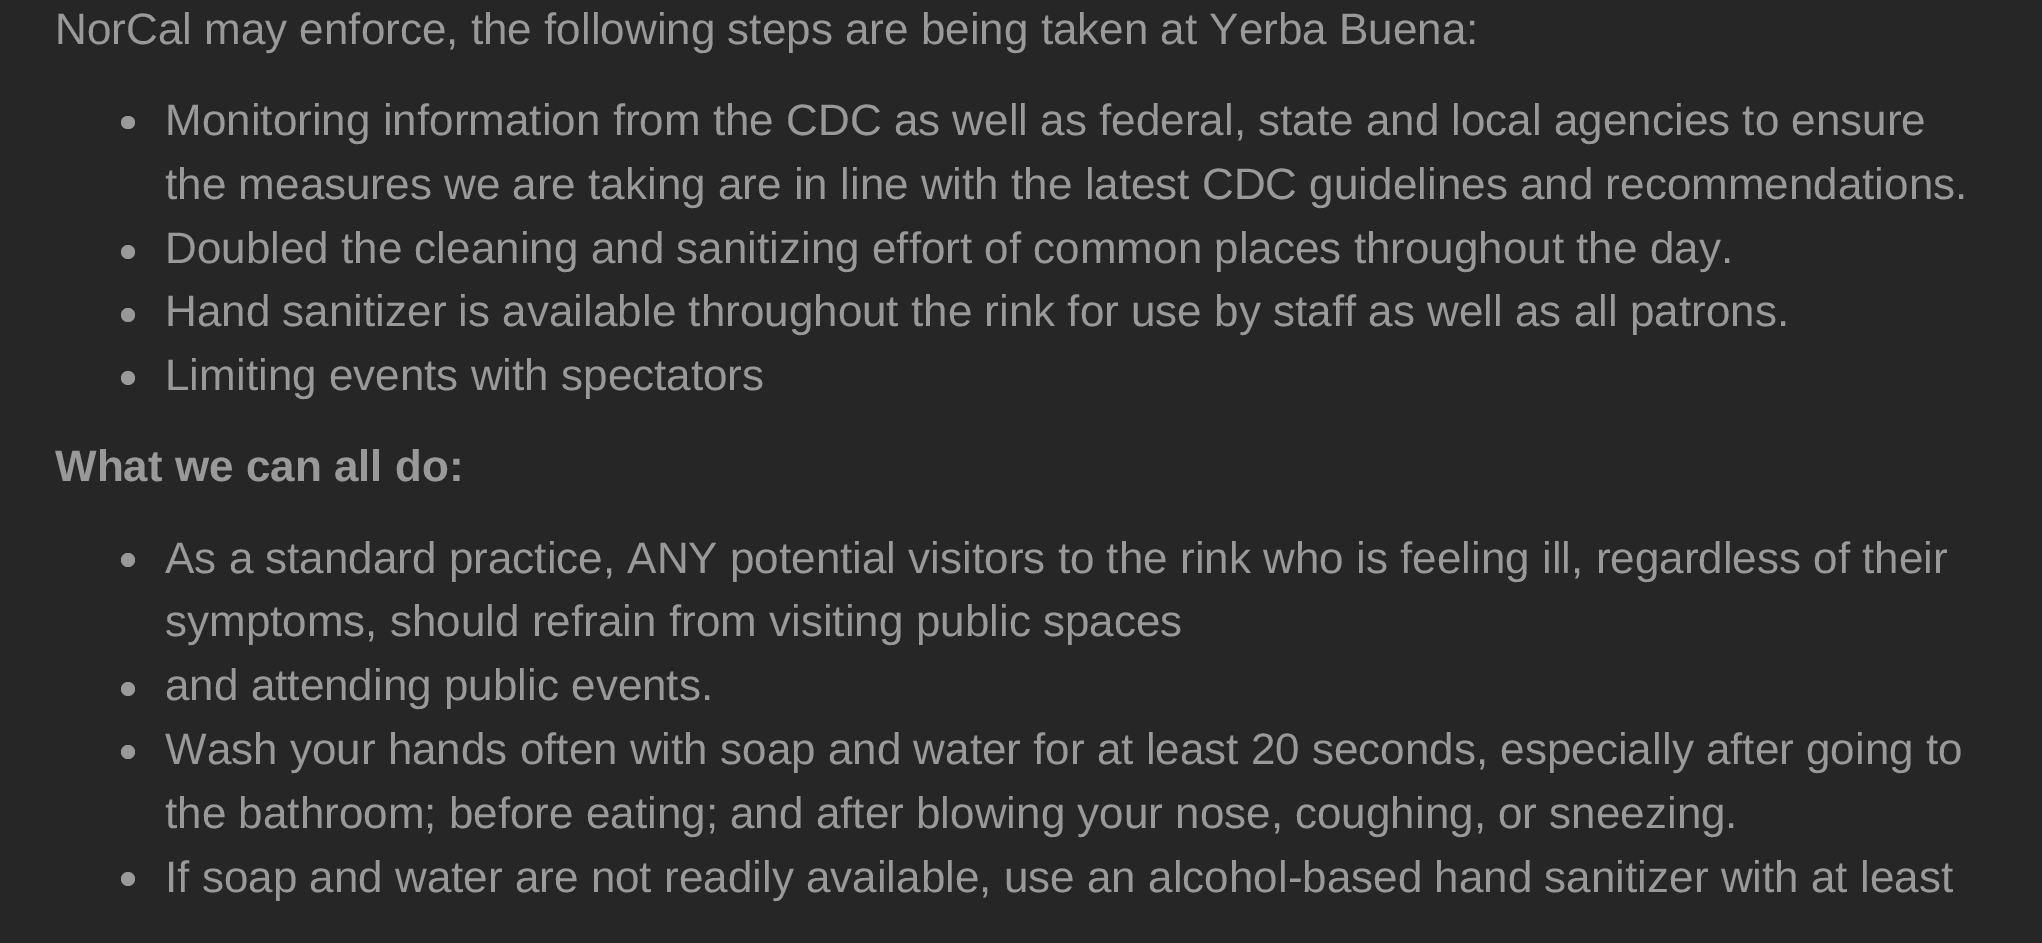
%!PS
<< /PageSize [2042 943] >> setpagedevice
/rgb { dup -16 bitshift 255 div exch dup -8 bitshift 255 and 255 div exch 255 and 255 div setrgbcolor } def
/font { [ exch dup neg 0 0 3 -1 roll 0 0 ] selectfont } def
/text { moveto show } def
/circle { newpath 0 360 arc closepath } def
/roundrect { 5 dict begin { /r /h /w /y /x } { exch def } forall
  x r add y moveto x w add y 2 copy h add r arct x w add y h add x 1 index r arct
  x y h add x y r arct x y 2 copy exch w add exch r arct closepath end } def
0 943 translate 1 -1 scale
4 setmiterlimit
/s1 { /LiberationSans-Regular 44 font 16#999999 rgb } def
/s2 { /LiberationSans-Bold 44 font 16#999999 rgb } def
16#262626 rgb
0 0 2042 943 rectfill
s1
(NorCal may enforce, the following steps are being taken at Yerba Buena:) 55 44 text
121 116 14 13 6.5 roundrect fill
(Monitoring information from the CDC as well as federal, state and local agencies to ensure) 165 135 text
(the measures we are taking are in line with the latest CDC guidelines and recommendations.) 165 199 text
128 252 7 circle fill
(Doubled the cleaning and sanitizing effort of common places throughout the day.) 165 263 text
128 315 7 circle fill
(Hand sanitizer is available throughout the rink for use by staff as well as all patrons.) 165 326 text
128 378 7 circle fill
(Limiting events with spectators) 165 390 text
s2
(What we can all do:) 55 481 text
128 560 7 circle fill
s1
(As a standard practice, ANY potential visitors to the rink who is feeling ill, regardless of their) 165 573 text
(symptoms, should refrain from visiting public spaces) 165 636 text
128 689 7 circle fill
(and attending public events.) 165 700 text
128 752 7 circle fill
(Wash your hands often with soap and water for at least 20 seconds, especially after going to) 165 764 text
(the bathroom; before eating; and after blowing your nose, coughing, or sneezing.) 165 828 text
128 879 7 circle fill
(If soap and water are not readily available, use an alcohol-based hand sanitizer with at least) 165 892 text
showpage
